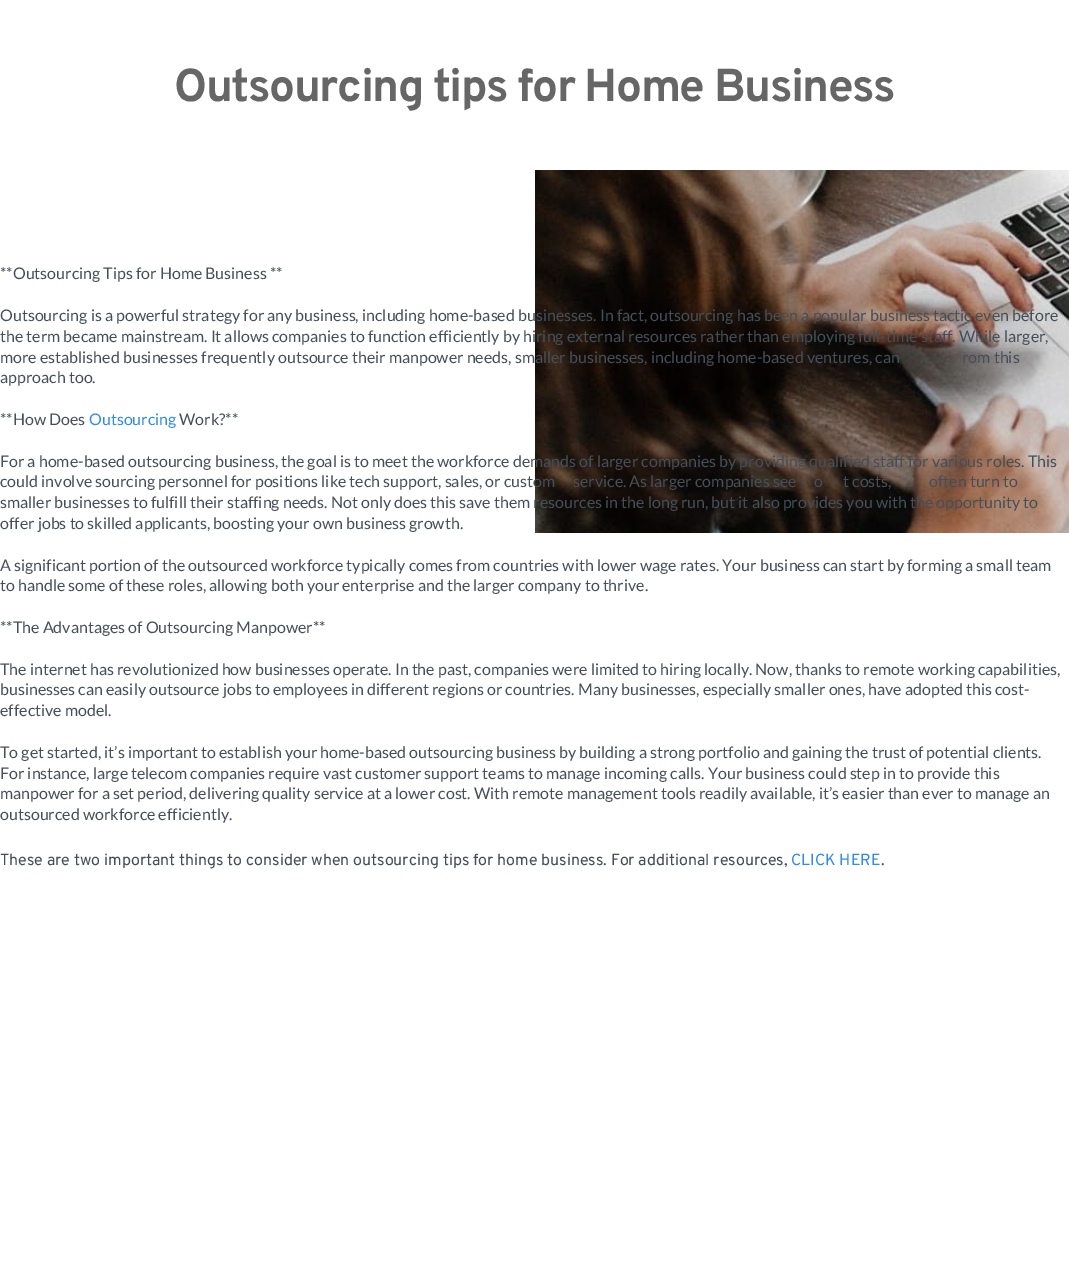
%!PS
<< /PageSize [1069 1263] >> setpagedevice
/rgb { dup -16 bitshift 255 div exch dup -8 bitshift 255 and 255 div exch 255 and 255 div setrgbcolor } def
/font { [ exch dup neg 0 0 3 -1 roll 0 0 ] selectfont } def
/text { moveto show } def
/picture { 5 dict begin { /h /w /y /x /name } { exch def } forall
  gsave x y translate w h scale
  w h 8 [w 0 0 h 0 0] name (r) file false 3 colorimage grestore end } def
0 1263 translate 1 -1 scale
4 setmiterlimit
/s1 { /Lato-Regular 16 font 16#454F59 rgb } def
/s2 { /Lato-Regular 16 font 16#2F8BE6 rgb } def
/s3 { /Overpass-Regular 16 font 16#454F59 rgb } def
/s4 { /Overpass-Regular 16 font 16#2F8BE6 rgb } def
16#FFFFFF rgb
0 0 1069 1263 rectfill
/Overpass-Bold 46 font
16#666666 rgb
174 101 moveto -1.5 0 (Outsourcing tips for Home Business) ashow
(pic1.raw) 535 170 534 363 picture
s1
(**Outsourcing Tips for Home Business **) 0 279 text
(Outsourcing is a powerful strategy for any business, including home-based businesses. In fact, outsourcing has been a popular business tactic even before) 0 321 text
(the term became mainstream. It allows companies to function efficiently by hiring external resources rather than employing full-time staff. While larger,) 0 342 text
(more established businesses frequently outsource their manpower needs, smaller businesses, including home-based ventures, can) 0 363 text
(rom this) 962 363 text
(approach too.) 0 383 text
(**How Does) 0 425 text
s2
(Outsourcing) 89 425 text
s1
(Work?**) 179 425 text
(For a home-based outsourcing business, the goal is to meet the workforce demands of larger companies by providing qualified staff for various roles. This) 0 467 text
(could involve sourcing personnel for positions like tech support, sales, or custom) 0 487 text
(service. As larger companies see) 573 487 text
(o) 814 487 text
(t costs,) 843 487 text
(often turn to) 929 487 text
(smaller businesses to fulfill their staffing needs. Not only does this save them resources in the long run, but it also provides you with the opportunity to) 0 508 text
(offer jobs to skilled applicants, boosting your own business growth.) 0 529 text
(A significant portion of the outsourced workforce typically comes from countries with lower wage rates. Your business can start by forming a small team) 0 571 text
(to handle some of these roles, allowing both your enterprise and the larger company to thrive.) 0 591 text
(**The Advantages of Outsourcing Manpower**) 0 633 text
(The internet has revolutionized how businesses operate. In the past, companies were limited to hiring locally. Now, thanks to remote working capabilities,) 0 675 text
(businesses can easily outsource jobs to employees in different regions or countries. Many businesses, especially smaller ones, have adopted this cost-) 0 695 text
(effective model.) 0 716 text
(To get started, it’s important to establish your home-based outsourcing business by building a strong portfolio and gaining the trust of potential clients.) 0 758 text
(For instance, large telecom companies require vast customer support teams to manage incoming calls. Your business could step in to provide this) 0 779 text
(manpower for a set period, delivering quality service at a lower cost. With remote management tools readily available, it’s easier than ever to manage an) 0 799 text
(outsourced workforce efficiently.) 0 820 text
s3
(These are two important things to consider when outsourcing tips for home business. For additional resources,) 0 865 text
s4
(CLICK HERE) 791 865 text
s3
(.) 881 865 text
showpage
